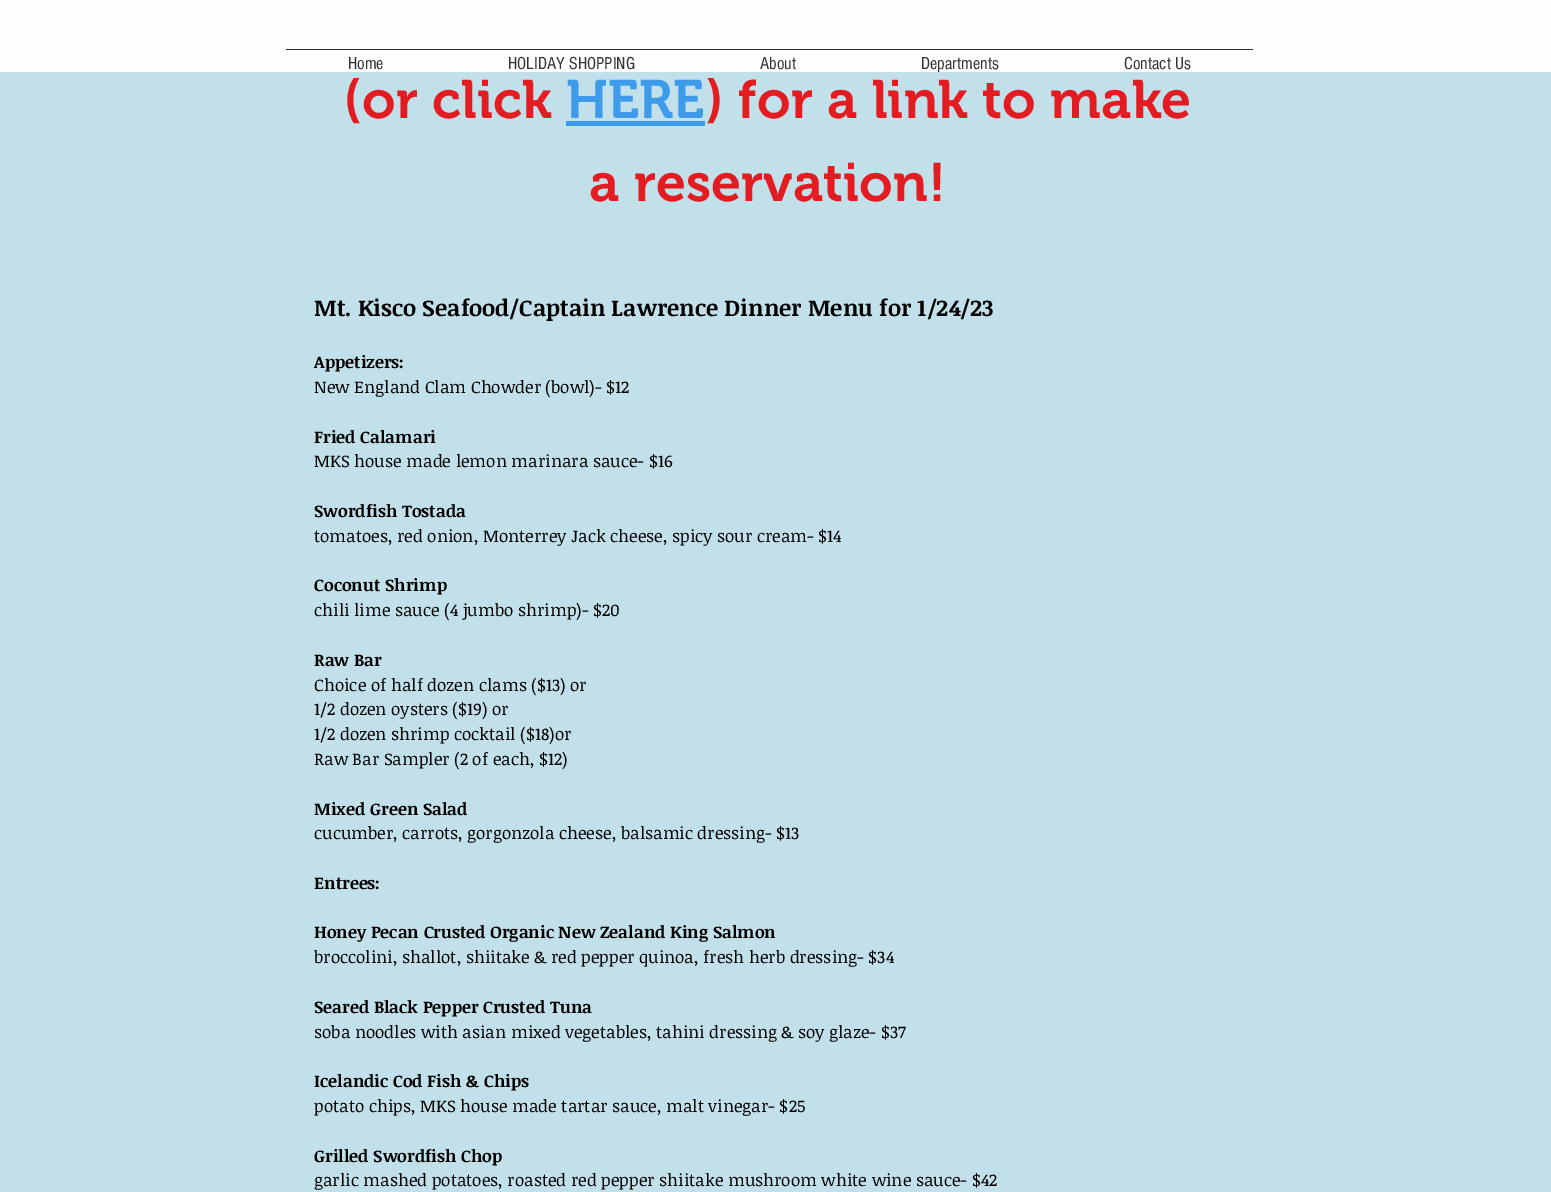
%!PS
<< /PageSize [1551 1192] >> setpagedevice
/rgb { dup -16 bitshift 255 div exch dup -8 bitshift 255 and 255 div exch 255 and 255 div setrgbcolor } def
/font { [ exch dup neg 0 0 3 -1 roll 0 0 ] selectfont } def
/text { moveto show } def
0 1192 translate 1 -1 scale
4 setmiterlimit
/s1 { /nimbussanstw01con-Regular 18 font 16#333333 rgb } def
/s2 { /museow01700-SemiBold 54 font 16#E21C21 rgb } def
/s3 { /museow01700-SemiBold 54 font 16#3D9BE9 rgb } def
/s4 { /NoticiaText-Bold 23 font 16#000000 rgb } def
/s5 { /NoticiaText-Bold 17 font 16#000000 rgb } def
/s6 { /NoticiaText-Regular 17 font 16#000000 rgb } def
16#C2E0E9 rgb
0 0 1551 1192 rectfill
16#FDFEFE rgb
0 0 1551 72 rectfill
16#333333 rgb
286 49 967 1 rectfill
s1
(Home) 348 69 text
(HOLIDAY SHOPPING) 508 69 text
(About) 760 69 text
(Departments) 921 69 text
(Contact Us) 1124 69 text
s2
(\(or click) 343 118 text
s3
(HERE) 566 118 text
566 121 139 5 rectfill
s2
(\) for a link to make) 705 118 text
(a reservation!) 589 201 text
s4
(Mt. Kisco Seafood/Captain Lawrence Dinner Menu for 1/24/23) 314 316 text
s5
(Appetizers:) 314 368 text
s6
(New England Clam Chowder \(bowl\)- $12) 314 393 text
s5
(Fried Calamari) 314 443 text
s6
(MKS house made lemon marinara sauce- $16) 314 467 text
s5
(Swordfish Tostada) 314 517 text
s6
(tomatoes, red onion, Monterrey Jack cheese, spicy sour cream- $14) 314 542 text
s5
(Coconut Shrimp) 314 591 text
s6
(chili lime sauce \(4 jumbo shrimp\)- $20) 314 616 text
s5
(Raw Bar) 314 666 text
s6
(Choice of half dozen clams \($13\) or) 314 691 text
(1/2 dozen oysters \($19\) or) 314 715 text
(1/2 dozen shrimp cocktail \($18\)or) 314 740 text
(Raw Bar Sampler \(2 of each, $12\)) 314 765 text
s5
(Mixed Green Salad) 314 815 text
s6
(cucumber, carrots, gorgonzola cheese, balsamic dressing- $13) 314 839 text
s5
(Entrees:) 314 889 text
(Honey Pecan Crusted Organic New Zealand King Salmon) 314 938 text
s6
(broccolini, shallot, shiitake & red pepper quinoa, fresh herb dressing- $34) 314 963 text
s5
(Seared Black Pepper Crusted Tuna) 314 1013 text
s6
(soba noodles with asian mixed vegetables, tahini dressing & soy glaze- $37) 314 1038 text
s5
(Icelandic Cod Fish & Chips) 314 1087 text
s6
(potato chips, MKS house made tartar sauce, malt vinegar- $25) 314 1112 text
s5
(Grilled Swordfish Chop) 314 1162 text
s6
(garlic mashed potatoes, roasted red pepper shiitake mushroom white wine sauce- $42) 314 1186 text
showpage
